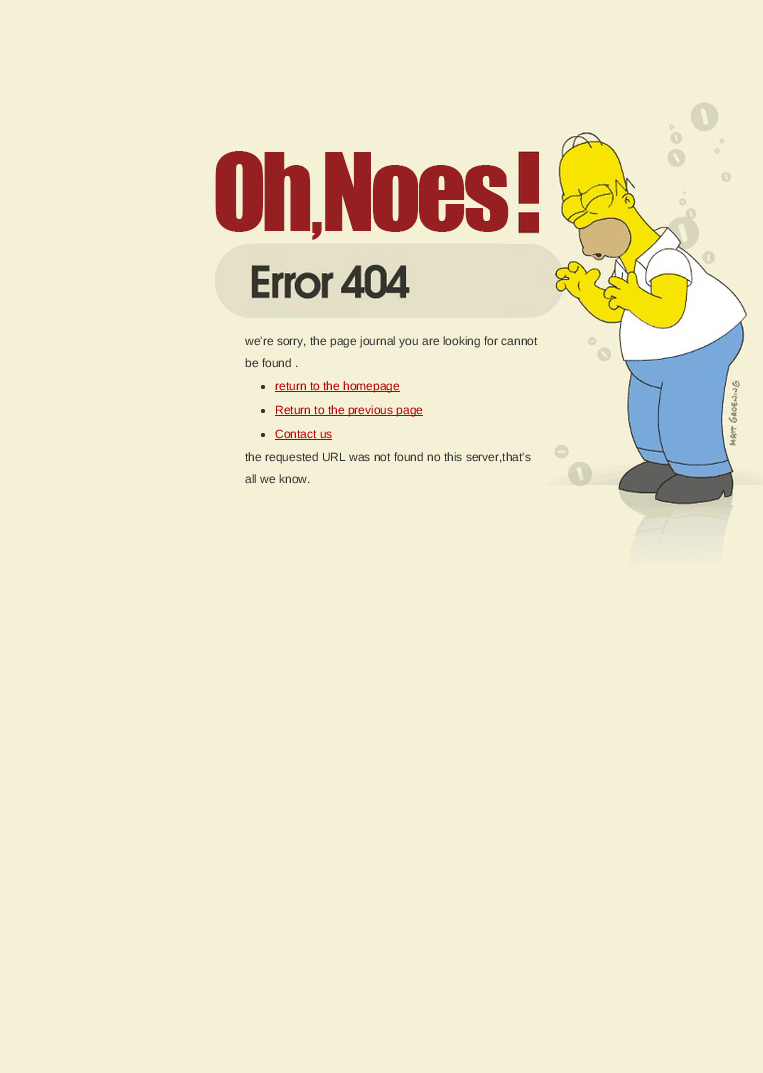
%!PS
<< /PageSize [763 1073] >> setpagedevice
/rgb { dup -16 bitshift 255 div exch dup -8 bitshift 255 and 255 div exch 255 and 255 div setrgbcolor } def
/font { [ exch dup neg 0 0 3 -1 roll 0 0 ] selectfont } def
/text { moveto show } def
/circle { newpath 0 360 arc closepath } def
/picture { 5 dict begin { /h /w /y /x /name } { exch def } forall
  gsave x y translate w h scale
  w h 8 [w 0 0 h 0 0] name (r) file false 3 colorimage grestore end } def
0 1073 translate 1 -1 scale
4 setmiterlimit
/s1 { /LiberationSans-Regular 12 font 16#333333 rgb } def
/s2 { /LiberationSans-Regular 12 font 16#B50000 rgb } def
16#F5F1D6 rgb
0 0 763 1073 rectfill
(pic1.raw) 215 102 548 462 picture
s1
(we're sorry, the page journal you are looking for cannot) 245 345 text
(be found .) 245 367 text
263 387 2 circle fill
16#B50000 rgb
275 391 125 1 rectfill
(return to the homepage) 275 390 text
16#333333 rgb
263 411 2 circle fill
16#B50000 rgb
275 415 148 1 rectfill
(Return to the previous page) 275 414 text
16#333333 rgb
263 435 2 circle fill
s2
(Contact us) 275 438 text
275 439 57 1 rectfill
s1
(the requested URL was not found no this server,that's) 245 461 text
(all we know.) 245 483 text
showpage
